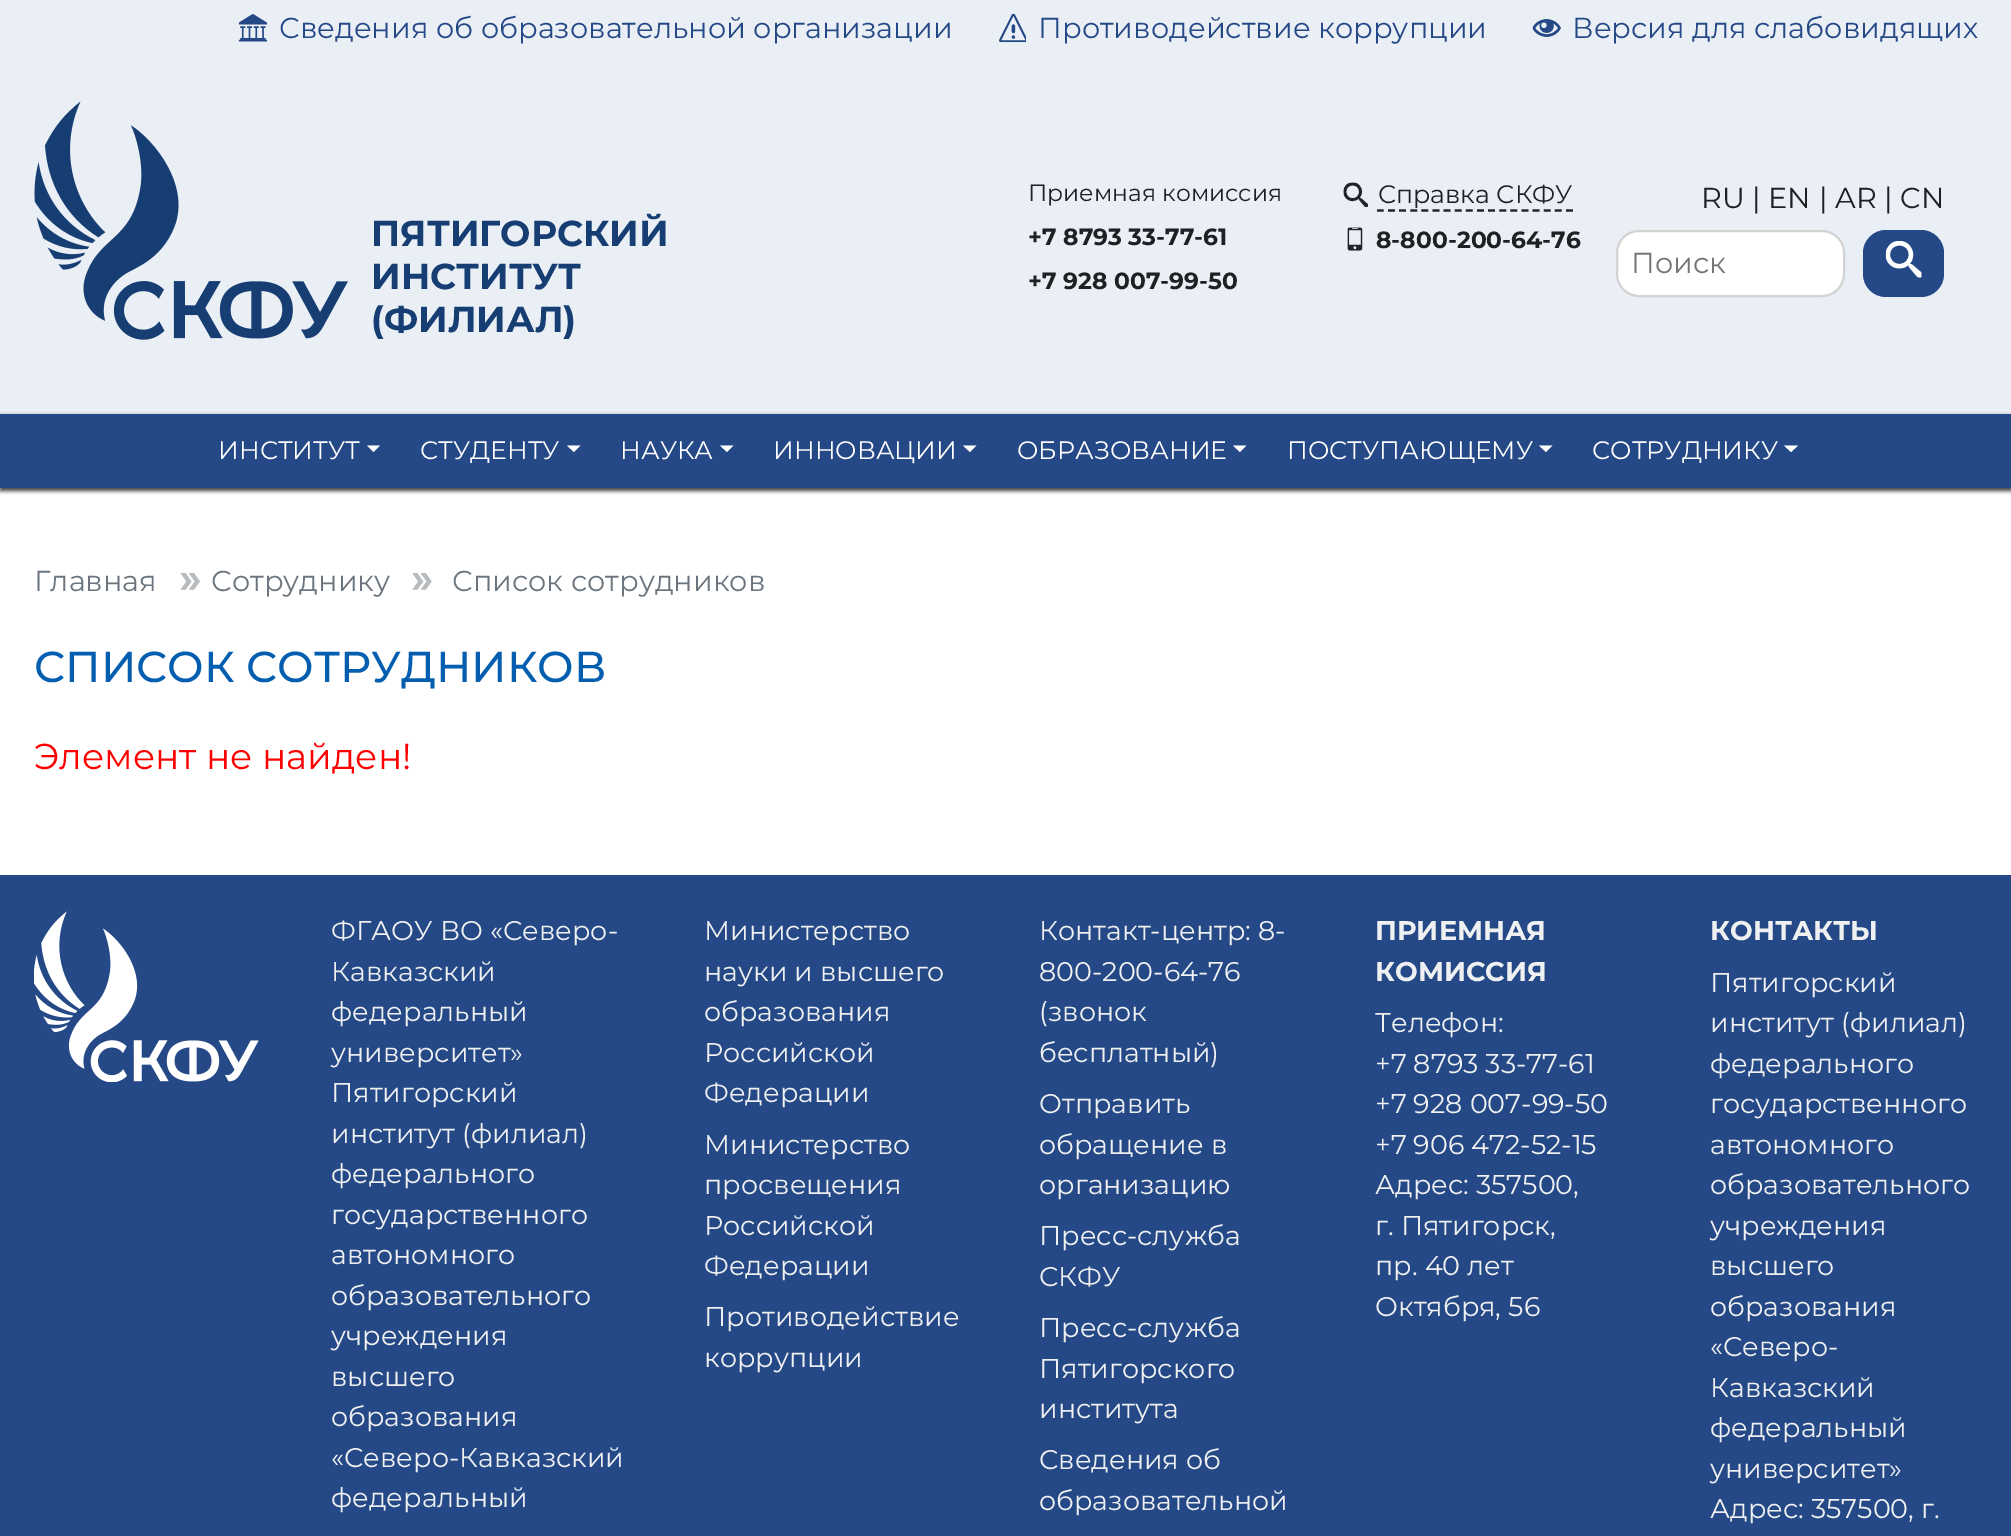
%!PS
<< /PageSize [2011 1536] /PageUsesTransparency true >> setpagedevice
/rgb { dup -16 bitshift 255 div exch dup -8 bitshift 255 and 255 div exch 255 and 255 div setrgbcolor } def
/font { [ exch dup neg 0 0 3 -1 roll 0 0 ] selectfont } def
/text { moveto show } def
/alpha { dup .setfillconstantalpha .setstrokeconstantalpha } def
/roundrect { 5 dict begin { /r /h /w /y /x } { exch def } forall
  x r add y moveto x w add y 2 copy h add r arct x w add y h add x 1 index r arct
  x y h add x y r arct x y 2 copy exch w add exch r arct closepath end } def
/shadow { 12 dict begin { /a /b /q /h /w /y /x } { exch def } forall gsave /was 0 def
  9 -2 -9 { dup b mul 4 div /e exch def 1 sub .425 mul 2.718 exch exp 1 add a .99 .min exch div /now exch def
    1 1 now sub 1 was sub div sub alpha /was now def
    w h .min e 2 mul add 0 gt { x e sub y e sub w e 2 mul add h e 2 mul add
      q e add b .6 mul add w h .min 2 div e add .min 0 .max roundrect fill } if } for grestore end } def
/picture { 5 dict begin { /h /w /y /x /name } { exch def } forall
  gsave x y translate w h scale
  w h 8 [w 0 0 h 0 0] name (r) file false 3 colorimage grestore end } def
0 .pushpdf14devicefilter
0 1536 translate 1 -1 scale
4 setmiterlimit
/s1 { /Montserrat-Regular 28.8 font 16#254986 rgb } def
/s2 { /Montserrat-Bold 36 font 16#163E73 rgb } def
/s3 { /Montserrat-Regular 23.4 font 16#1D2124 rgb } def
/s4 { /Montserrat-Bold 23.4 font 16#1D2124 rgb } def
/s5 { /Montserrat-Regular 25.25 font 16#1D2124 rgb } def
/s6 { /Montserrat-Regular 28.8 font 16#1D2124 rgb } def
/s7 { /Montserrat-Regular 28.8 font 16#757575 rgb } def
/s8 { /Montserrat-Regular 25.25 font 16#FFFFFF rgb } def
/s9 { /Montserrat-Regular 28.8 font 16#6C757D rgb } def
/s10 { /Montserrat-Medium 43.25 font 16#035EAF rgb } def
/s11 { /Montserrat-Regular 36 font 16#FF0000 rgb } def
/s12 { /Montserrat-Regular 27 font 16#EFF0F1 rgb } def
/s13 { /Montserrat-Bold 27 font 16#EFF0F1 rgb } def
16#FFFFFF rgb
0 0 2011 1536 rectfill
16#EAEFF6 rgb
0 0 2011 414 rectfill
(pic1.raw) 238 14 30 28 picture
s1
(Сведения об образовательной организации) 279 38 text
(pic2.raw) 999 13 27 30 picture
(Противодействие коррупции) 1038 38 text
(pic3.raw) 1532 19 29 18 picture
(Версия для слабовидящих) 1572 38 text
(pic4.raw) 34 101 314 239 picture
s2
(ПЯТИГОРСКИЙ) 371 246 text
(ИНСТИТУТ) 371 289 text
(\(ФИЛИАЛ\)) 371 332 text
s3
(Приемная комиссия) 1028 201 text
s4
(+7 8793 33-77-61) 1028 245 text
(+7 928 007-99-50) 1028 289 text
(pic5.raw) 1343 182 25 25 picture
s5
(Справка СКФУ) 1378 203 text
16#212529 rgb
2.2 setlinewidth
[6.75 4.37] 0 setdash
1377 210.5 moveto 1573 210.5 lineto stroke
(pic6.raw) 1347 227 16 24 picture
s4
(8-800-200-64-76) 1376 248 text
s6
(RU) 1701 208 text
(|) 1752 208 text
(EN) 1768 208 text
(|) 1819 208 text
(AR) 1835 208 text
(|) 1884 208 text
(CN) 1900 208 text
16#FFFFFF rgb
1617 231 227 65 22 roundrect gsave fill grestore
16#D3D3D3 rgb
2 setlinewidth
[] 0 setdash
stroke
s7
(Поиск) 1631 273 text
16#254986 rgb
1863 230 81 67 23 roundrect fill
(pic7.raw) 1885 241 37 37 picture
16#000000 rgb
0 416 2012 75 0 2 0.75 shadow
16#254986 rgb
0 414 2011 74 rectfill
s8
(ИНСТИТУТ) 218 459 text
367 445.5 moveto 380 445.5 lineto 373.5 452 lineto closepath fill
(СТУДЕНТУ) 420 459 text
567 445.5 moveto 580.5 445.5 lineto 574 452 lineto closepath fill
(НАУКА) 620 459 text
720 445.5 moveto 733.5 445.5 lineto 727 452 lineto closepath fill
(ИННОВАЦИИ) 773 459 text
963 445.5 moveto 976.5 445.5 lineto 970 452 lineto closepath fill
(ОБРАЗОВАНИЕ) 1017 459 text
1233 445.5 moveto 1246.5 445.5 lineto 1240 452 lineto closepath fill
(ПОСТУПАЮЩЕМУ) 1287 459 text
1539 445.5 moveto 1552.5 445.5 lineto 1546 452 lineto closepath fill
(СОТРУДНИКУ) 1592 459 text
1784 445.5 moveto 1798 445.5 lineto 1791 452 lineto closepath fill
s9
(Главная) 34 591 text
(pic8.raw) 180 573 20 17 picture
(Сотруднику) 211 591 text
(pic9.raw) 412 573 20 17 picture
(Список сотрудников) 452 591 text
s10
(СПИСОК СОТРУДНИКОВ) 34 682 text
s11
(Элемент не найден!) 34 769 text
16#254986 rgb
0 875 2011 661 rectfill
(pic10.raw) 34 911 225 171 picture
s12
(ФГАОУ ВО «Северо-) 331 940 text
(Кавказский) 331 981 text
(федеральный) 331 1021 text
(университет») 331 1062 text
(Пятигорский) 331 1102 text
(институт \(филиал\)) 331 1143 text
(федерального) 331 1183 text
(государственного) 331 1224 text
(автономного) 331 1264 text
(образовательного) 331 1305 text
(учреждения) 331 1345 text
(высшего) 331 1386 text
(образования) 331 1426 text
(«Северо-Кавказский) 331 1467 text
(федеральный) 331 1507 text
(Министерство) 704 940 text
(науки и высшего) 704 981 text
(образования) 704 1021 text
(Российской) 704 1062 text
(Федерации) 704 1102 text
(Министерство) 704 1154 text
(просвещения) 704 1194 text
(Российской) 704 1235 text
(Федерации) 704 1275 text
(Противодействие) 704 1326 text
(коррупции) 704 1367 text
(Контакт-центр: 8-) 1039 940 text
(800-200-64-76) 1039 981 text
(\(звонок) 1039 1021 text
(бесплатный\)) 1039 1062 text
(Отправить) 1039 1113 text
(обращение в) 1039 1154 text
(организацию) 1039 1194 text
(Пресс-служба) 1039 1245 text
(СКФУ) 1039 1286 text
(Пресс-служба) 1039 1337 text
(Пятигорского) 1039 1378 text
(института) 1039 1418 text
(Сведения об) 1039 1469 text
(образовательной) 1039 1510 text
s13
(ПРИЕМНАЯ) 1375 940 text
(КОМИССИЯ) 1375 981 text
s12
(Телефон:) 1375 1032 text
(+7 8793 33-77-61) 1375 1073 text
(+7 928 007-99-50) 1375 1113 text
(+7 906 472-52-15) 1375 1154 text
(Адрес: 357500,) 1375 1194 text
(г. Пятигорск,) 1375 1235 text
(пр. 40 лет) 1375 1275 text
(Октября, 56) 1375 1316 text
s13
(КОНТАКТЫ) 1710 940 text
s12
(Пятигорский) 1710 992 text
(институт \(филиал\)) 1710 1032 text
(федерального) 1710 1073 text
(государственного) 1710 1113 text
(автономного) 1710 1154 text
(образовательного) 1710 1194 text
(учреждения) 1710 1235 text
(высшего) 1710 1275 text
(образования) 1710 1316 text
(«Северо-) 1710 1356 text
(Кавказский) 1710 1397 text
(федеральный) 1710 1437 text
(университет») 1710 1478 text
(Адрес: 357500, г.) 1710 1518 text
.poppdf14devicefilter showpage
